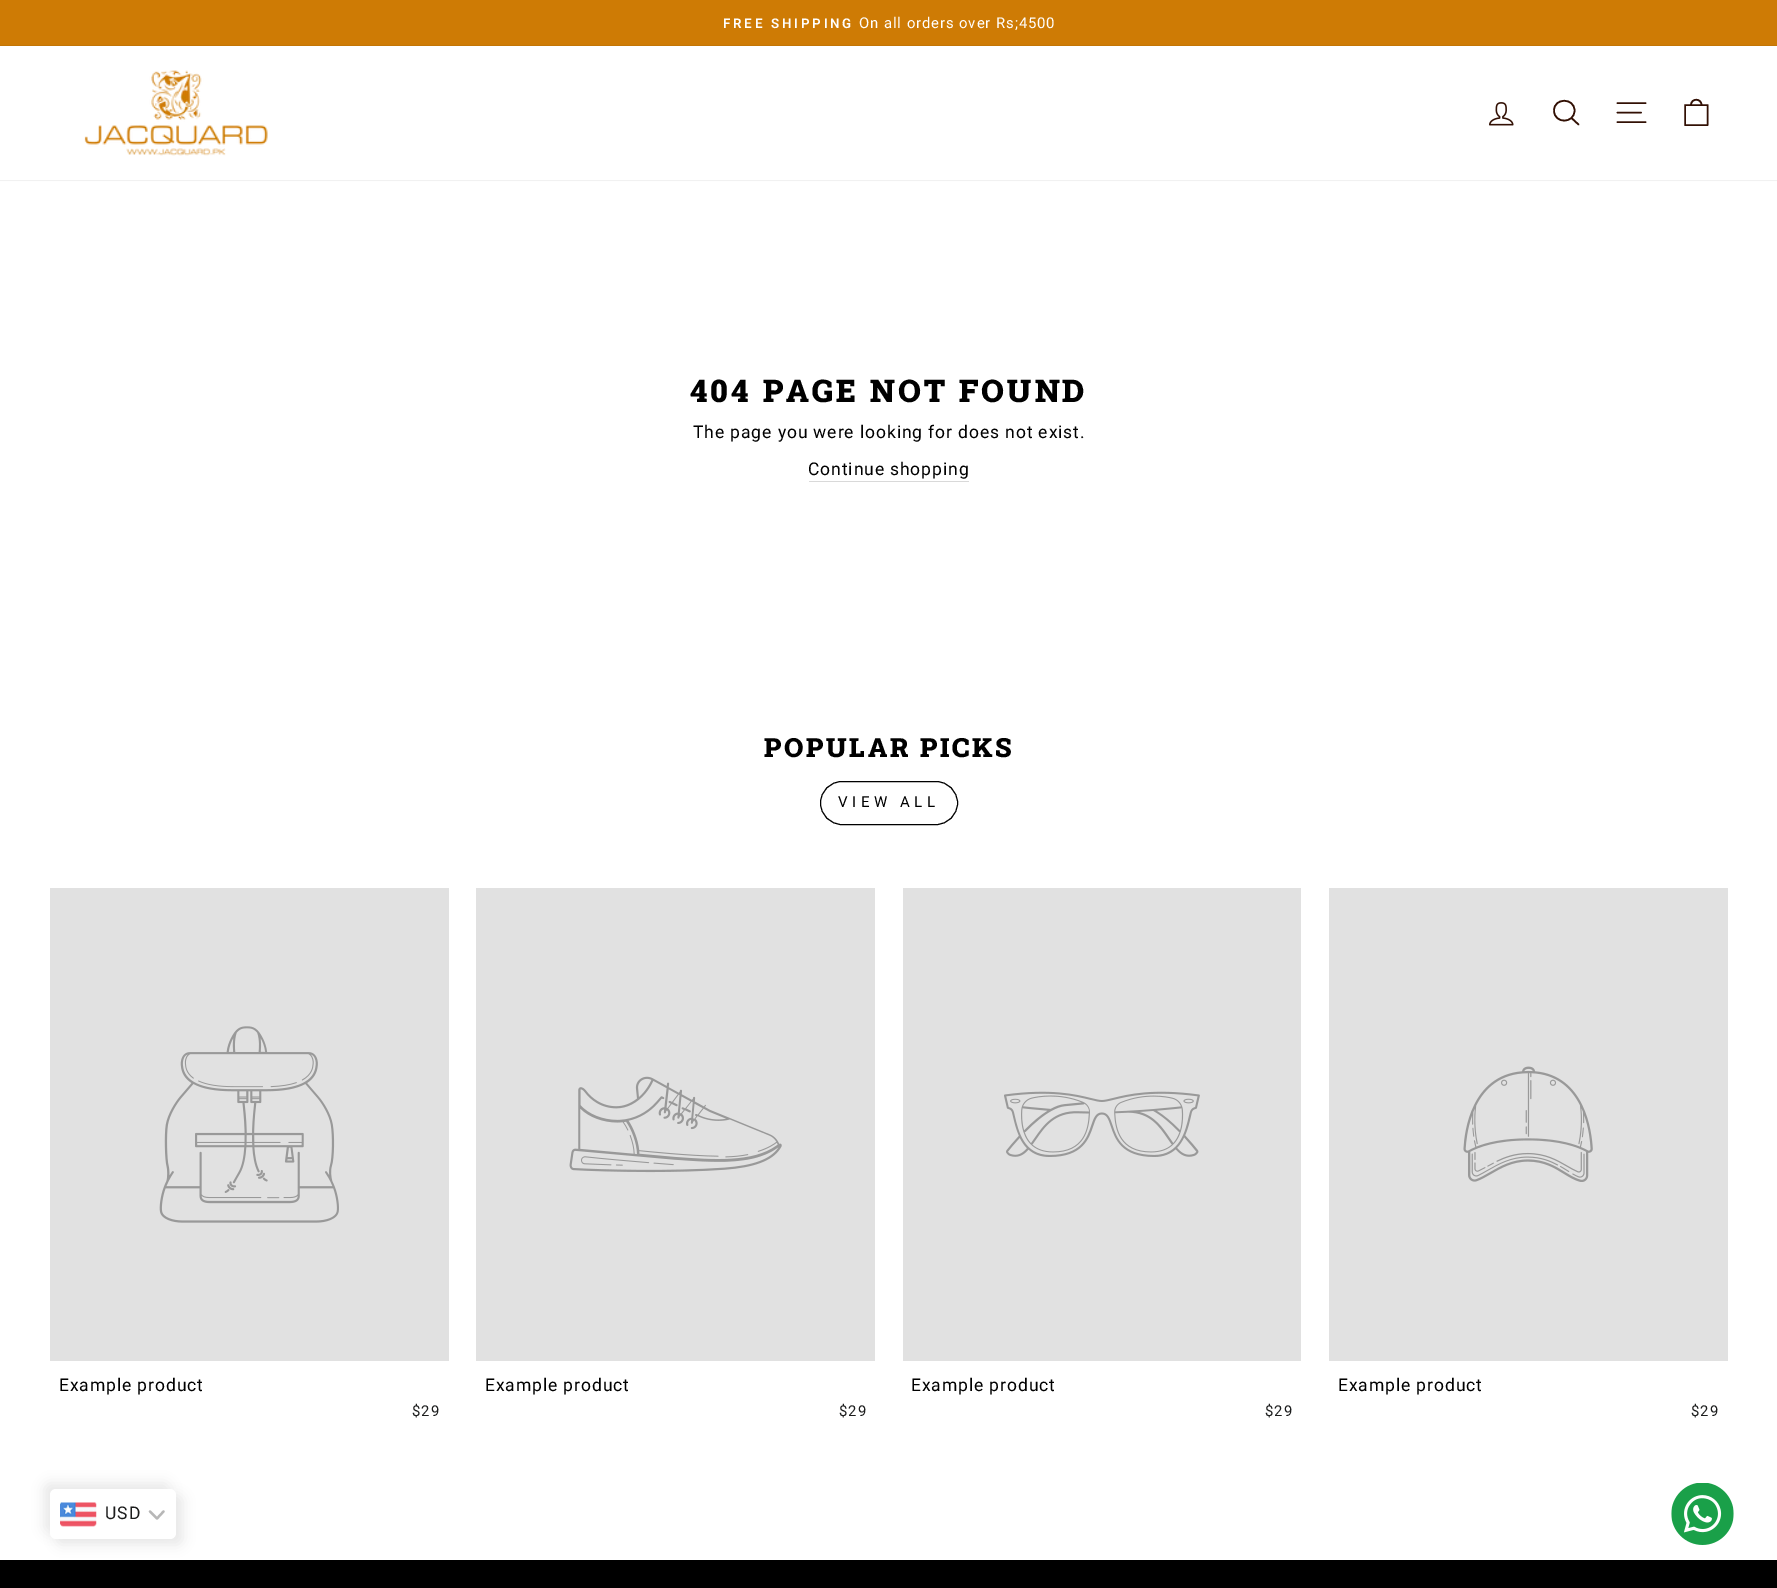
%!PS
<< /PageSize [1777 1588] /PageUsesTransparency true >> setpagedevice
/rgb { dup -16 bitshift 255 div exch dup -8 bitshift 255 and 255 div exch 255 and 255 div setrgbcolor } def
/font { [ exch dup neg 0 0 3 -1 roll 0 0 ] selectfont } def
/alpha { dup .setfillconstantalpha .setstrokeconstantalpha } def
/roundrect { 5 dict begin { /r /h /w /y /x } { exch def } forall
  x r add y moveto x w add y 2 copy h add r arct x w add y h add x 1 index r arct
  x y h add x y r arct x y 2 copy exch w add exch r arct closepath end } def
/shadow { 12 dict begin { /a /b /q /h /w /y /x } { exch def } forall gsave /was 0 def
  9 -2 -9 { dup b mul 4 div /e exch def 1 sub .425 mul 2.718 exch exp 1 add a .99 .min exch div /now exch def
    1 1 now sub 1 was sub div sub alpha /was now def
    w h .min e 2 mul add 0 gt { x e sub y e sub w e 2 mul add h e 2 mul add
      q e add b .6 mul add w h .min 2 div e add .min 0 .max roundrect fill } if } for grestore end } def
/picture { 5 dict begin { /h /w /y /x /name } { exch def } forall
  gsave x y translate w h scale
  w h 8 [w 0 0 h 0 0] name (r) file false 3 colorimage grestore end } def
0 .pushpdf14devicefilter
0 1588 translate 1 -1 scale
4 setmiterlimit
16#FFFFFF rgb
0 0 1777 1588 rectfill
16#CE7B05 rgb
0 0 1777 46 rectfill
/Roboto-SemiBold 13.4 font
16#FFFFFF rgb
723 28 moveto 2.75 0 (FREE SHIPPING) ashow
/Roboto-Regular 14.9 font
859 28 moveto 0.9 0 (On all orders over Rs;4500) ashow
16#000000 rgb
0 46 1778 134 0 0.5 0.2 shadow
16#FFFFFF rgb
0 46 1777 134 rectfill
(pic1.raw) 84 70 184 86 picture
(pic2.raw) 1489 102 25 24 picture
16#321004 rgb
1.6 setlinewidth
1 setlinecap
1 setlinejoin
1574.5 110.5 moveto 1574.5 124 1554 124 1554 110.5 curveto 1554 97.5 1574.5 97.5 1574.5 110.5 curveto closepath 1578.5 124.5 moveto 1571.5 118 lineto stroke
1617.5 103 moveto 1645.5 103 lineto 1617.5 112.5 moveto 1641 112.5 lineto 1617.5 122 moveto 1645.5 122 lineto stroke
1685 105 moveto 1707.5 105 lineto 1707.5 125 lineto 1685 125 lineto closepath 1691 105 moveto 1691 98 1701.5 98 1701.5 105 curveto stroke
/RobotoSlab-Black 31.25 font
16#000000 rgb
690 402 moveto 3.1 0 (404 PAGE NOT FOUND) ashow
/Roboto-Regular 17.5 font
693 438 moveto 0.9 0 (The page you were looking for does not exist.) ashow
16#D9D9D9 rgb
809 481 160 1 rectfill
16#000000 rgb
808 475 moveto 0.9 0 (Continue shopping) ashow
/RobotoSlab-Black 26.5 font
764 757 moveto 2.7 0 (POPULAR PICKS) ashow
1 setlinewidth
0 setlinecap
0 setlinejoin
820.5 781.5 137 43 21.5 roundrect stroke
/Roboto-Regular 15 font
838 807 moveto 4.5 0 (VIEW ALL) ashow
16#E1E1E1 rgb
50 888 399 473 rectfill
(pic3.raw) 159 1026 180 197 picture
/Roboto-Regular 17.5 font
16#000000 rgb
59 1391 moveto 0.9 0 (Example product) ashow
/Roboto-Regular 14.9 font
16#1C1D1D rgb
412 1416 moveto 0.9 0 ($29) ashow
16#E1E1E1 rgb
476 888 399 473 rectfill
(pic4.raw) 569 1076 213 97 picture
/Roboto-Regular 17.5 font
16#000000 rgb
485 1391 moveto 0.9 0 (Example product) ashow
/Roboto-Regular 14.9 font
16#1C1D1D rgb
839 1416 moveto 0.9 0 ($29) ashow
16#E1E1E1 rgb
903 888 398 473 rectfill
(pic5.raw) 1004 1091 196 66 picture
/Roboto-Regular 17.5 font
16#000000 rgb
911 1391 moveto 0.9 0 (Example product) ashow
/Roboto-Regular 14.9 font
16#1C1D1D rgb
1265 1416 moveto 0.9 0 ($29) ashow
16#E1E1E1 rgb
1329 888 399 473 rectfill
(pic6.raw) 1463 1066 130 116 picture
/Roboto-Regular 17.5 font
16#000000 rgb
1338 1391 moveto 0.9 0 (Example product) ashow
/Roboto-Regular 14.9 font
16#1C1D1D rgb
1691 1416 moveto 0.9 0 ($29) ashow
16#000000 rgb
0 1560 1777 28 rectfill
16#E8E8E8 rgb
44 1483 126 50 6 6 1 shadow
56 1495 127 50 6 6 1 shadow
16#FFFFFF rgb
50 1489 126 50 6 roundrect fill
(pic7.raw) 60 1502 37 25 picture
/Roboto-Regular 17.5 font
16#1C1D1D rgb
105 1519 moveto 0.9 0 (USD) ashow
16#B7B7B7 rgb
2.3 setlinewidth
1 setlinecap
1 setlinejoin
150 1511.5 moveto 157 1518.5 lineto 163.5 1511.5 lineto stroke
(pic8.raw) 1671 1483 63 62 picture
.poppdf14devicefilter showpage
